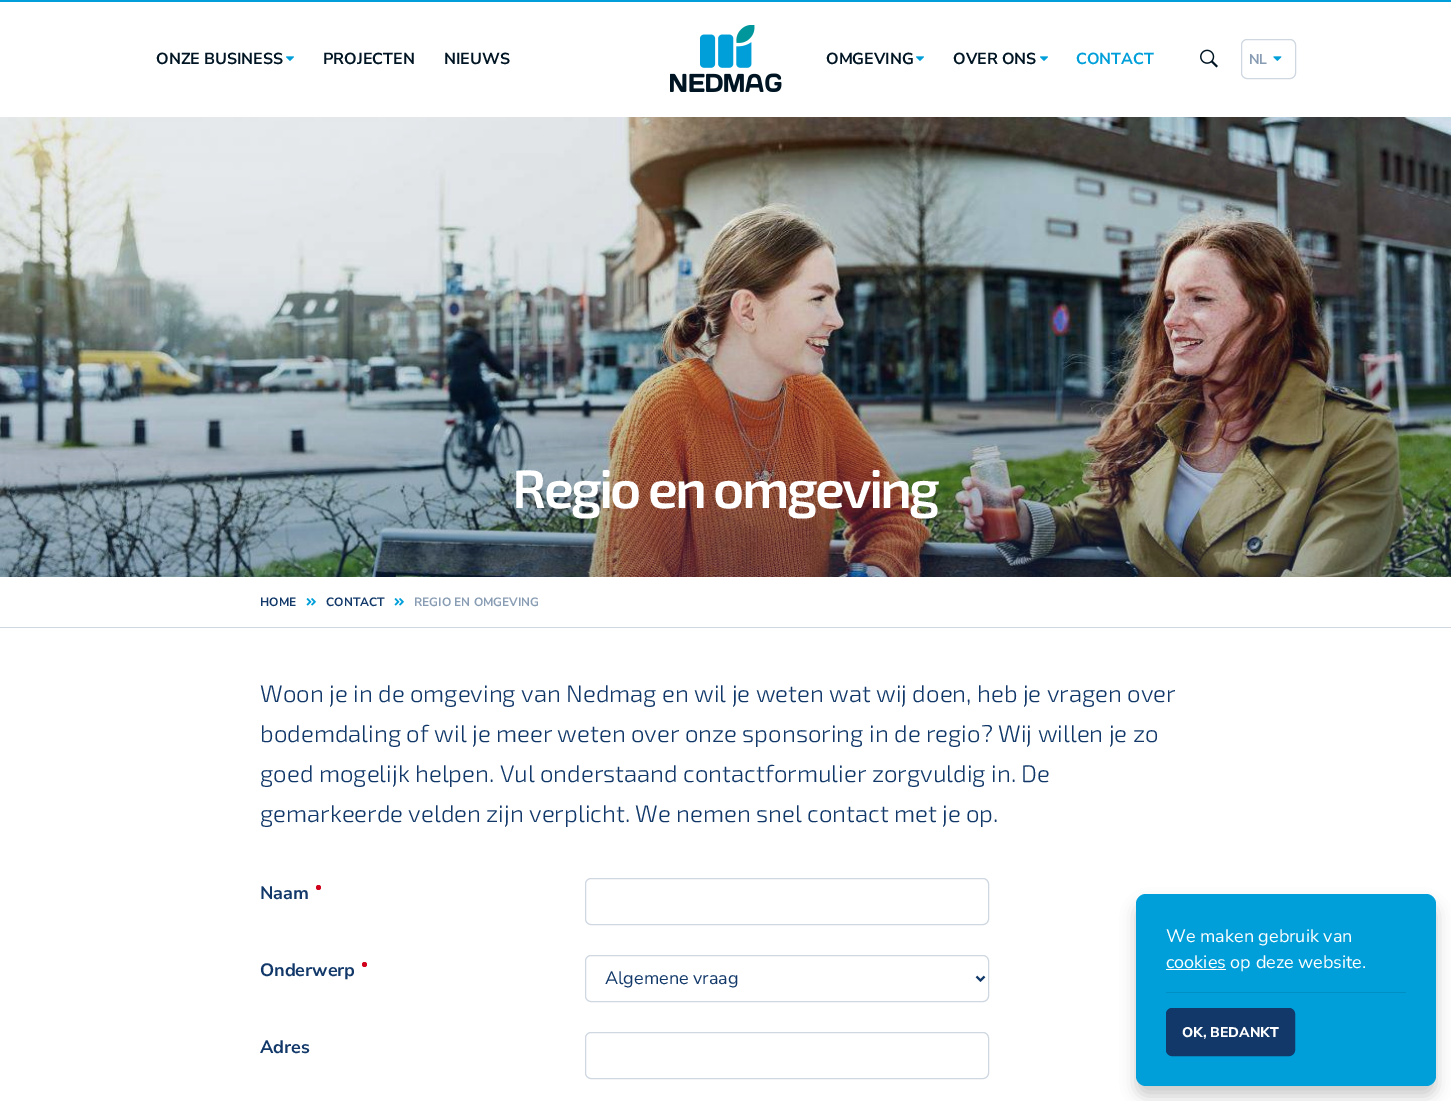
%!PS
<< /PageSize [1451 1101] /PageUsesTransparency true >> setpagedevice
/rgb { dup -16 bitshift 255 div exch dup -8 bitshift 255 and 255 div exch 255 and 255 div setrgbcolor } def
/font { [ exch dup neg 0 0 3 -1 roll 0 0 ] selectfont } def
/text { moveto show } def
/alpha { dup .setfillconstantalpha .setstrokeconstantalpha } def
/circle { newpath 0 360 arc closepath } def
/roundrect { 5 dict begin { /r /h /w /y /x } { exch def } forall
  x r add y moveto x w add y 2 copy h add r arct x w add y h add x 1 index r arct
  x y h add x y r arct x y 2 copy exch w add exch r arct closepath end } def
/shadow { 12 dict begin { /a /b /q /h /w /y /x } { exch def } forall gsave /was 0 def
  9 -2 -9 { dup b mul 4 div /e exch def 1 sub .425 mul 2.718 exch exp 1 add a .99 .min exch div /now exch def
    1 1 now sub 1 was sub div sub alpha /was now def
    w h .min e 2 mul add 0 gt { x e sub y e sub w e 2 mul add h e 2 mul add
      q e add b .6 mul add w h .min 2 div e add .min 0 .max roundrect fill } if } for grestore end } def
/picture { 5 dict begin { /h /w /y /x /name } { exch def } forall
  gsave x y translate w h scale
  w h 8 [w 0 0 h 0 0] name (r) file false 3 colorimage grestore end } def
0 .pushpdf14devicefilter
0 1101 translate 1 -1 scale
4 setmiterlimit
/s1 { /NunitoSans-Bold 16 font 16#001523 rgb } def
/s2 { /NunitoSans-Bold 16 font 16#009FD9 rgb } def
/s3 { /NunitoSans-Bold 14 font 16#889CB4 rgb } def
/s4 { /NunitoSans-Bold 12 font 16#113869 rgb } def
/s5 { /NunitoSans-Bold 12 font 16#889CB4 rgb } def
/s6 { /Exo2-Light 24 font 16#113869 rgb } def
/s7 { /NunitoSans-Bold 18 font 16#113869 rgb } def
/s8 { /NunitoSans-Regular 18 font 16#113869 rgb } def
/s9 { /NunitoSans-Regular 18 font 16#FFFFFF rgb } def
/s10 { /NunitoSans-ExtraBold 14 font 16#FFFFFF rgb } def
16#FFFFFF rgb
0 0 1451 1101 rectfill
16#009FD9 rgb
0 0 1451 2 rectfill
(pic1.raw) 670 25 112 67 picture
(pic2.raw) 1200 49 18 19 picture
s1
(ONZE BUSINESS) 156 64 text
(pic3.raw) 286 56 8 5 picture
(PROJECTEN) 323 64 text
(NIEUWS) 444 64 text
(OMGEVING) 826 64 text
(pic3.raw) 916 56 8 5 picture
(OVER ONS) 953 64 text
(pic3.raw) 1040 56 8 5 picture
s2
(CONTACT) 1076 64 text
16#CFD7E1 rgb
1241.5 39.5 54 39 5.5 roundrect stroke
s3
(NL) 1249 64 text
(pic4.raw) 1273 56 9 5 picture
(pic5.raw) 0 117 1451 460 picture
/Exo2-SemiBold 54 font
16#FFFFFF rgb
512 508 moveto -2.75 0 (Regio en omgeving) ashow
16#CFD7E1 rgb
0 627 1451 1 rectfill
s4
(HOME) 260 606 text
(pic6.raw) 306 598 10 8 picture
(CONTACT) 326 606 text
(pic6.raw) 394 598 10 8 picture
s5
(REGIO EN OMGEVING) 414 606 text
s6
(Woon je in de omgeving van Nedmag en wil je weten wat wij doen, heb je vragen over) 260 702 text
(bodemdaling of wil je meer weten over onze sponsoring in de regio? Wij willen je zo) 260 742 text
(goed mogelijk helpen. Vul onderstaand contactformulier zorgvuldig in. De) 260 782 text
(gemarkeerde velden zijn verplicht. We nemen snel contact met je op.) 260 822 text
s7
(Naam) 260 899 text
16#D0021B rgb
318.5 887.5 2.5 circle fill
16#CFD7E1 rgb
585.5 878.5 403 46 5.5 roundrect stroke
s7
(Onderwerp) 260 976 text
16#D0021B rgb
364.5 964.5 2.5 circle fill
16#CFD7E1 rgb
585.5 955.5 403 46 5.5 roundrect stroke
16#113869 rgb
2 setlinewidth
976.5 976.5 moveto 980.5 980.5 lineto 984.5 976.5 lineto stroke
s8
(Algemene vraag) 605 984 text
s7
(Adres) 260 1053 text
16#CFD7E1 rgb
1 setlinewidth
585.5 1032.5 403 46 5.5 roundrect stroke
16#000000 rgb
1136 904 300 192 10 7.5 0.2 shadow
16#009FD9 rgb
1136 894 300 192 10 roundrect fill
s9
(We maken gebruik van) 1166 942 text
1166 969 60 1 rectfill
(cookies op deze website.) 1166 968 text
16#008FC3 rgb
1166 992 240 1 rectfill
16#113869 rgb
1166.5 1008.5 128 47 5.5 roundrect gsave fill grestore
stroke
s10
(OK, BEDANKT) 1182 1037 text
.poppdf14devicefilter showpage
